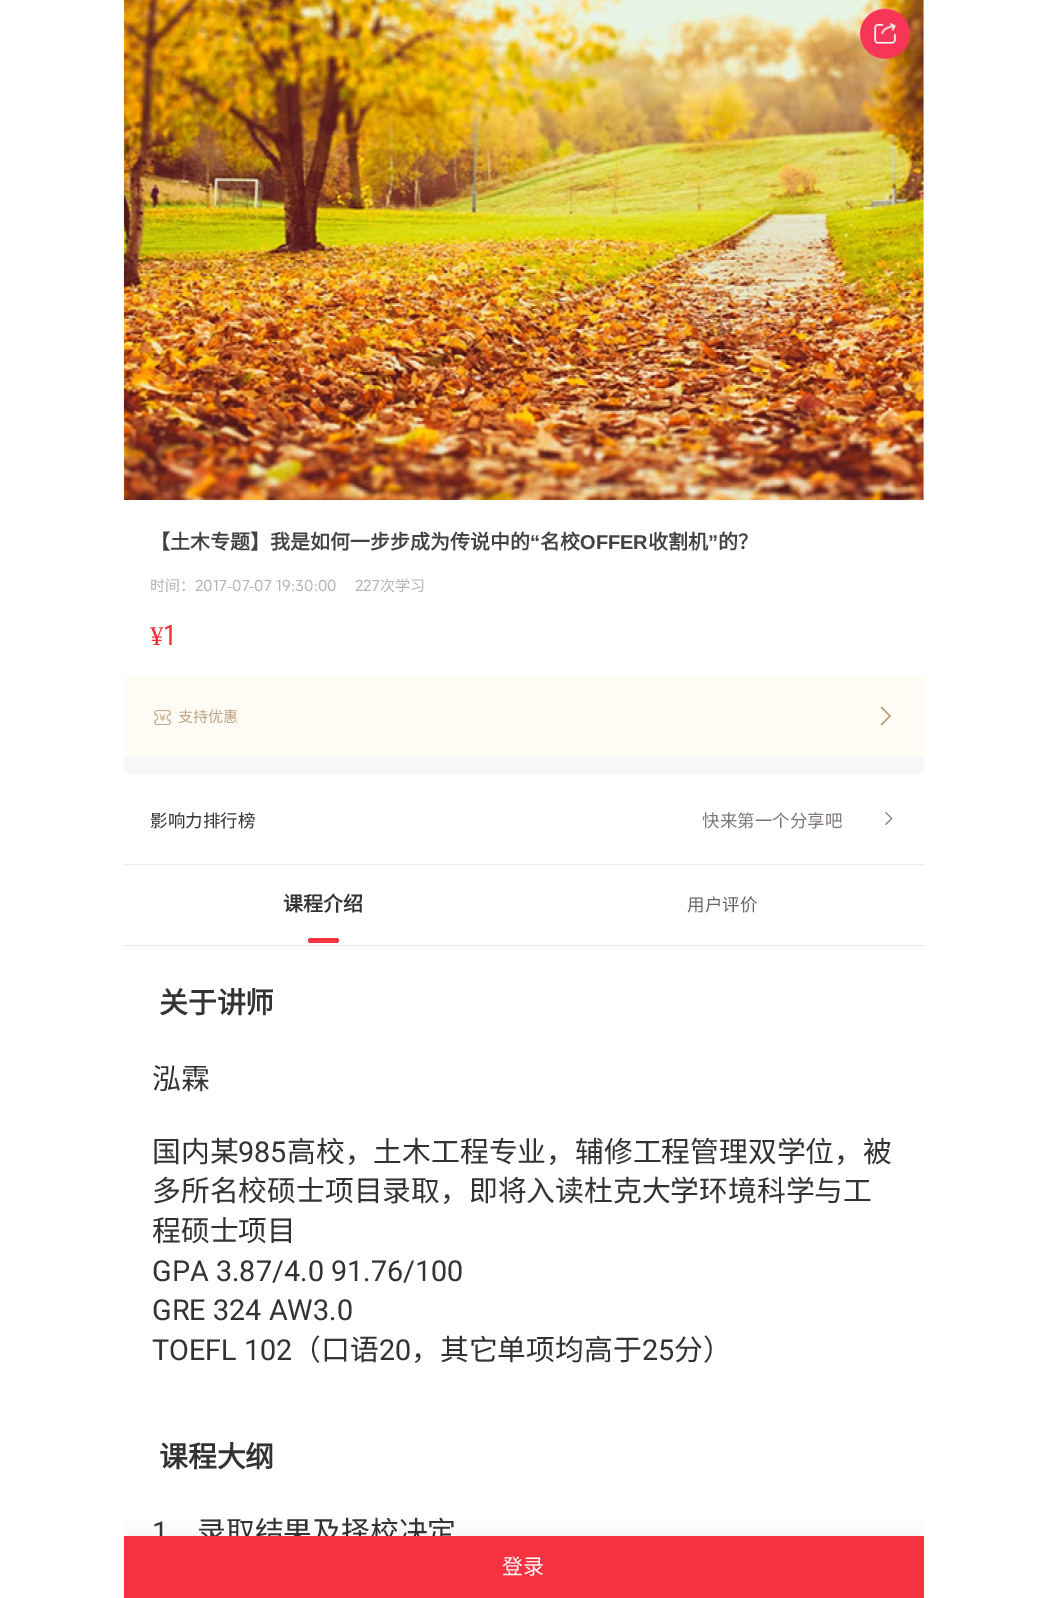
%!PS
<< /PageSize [1046 1598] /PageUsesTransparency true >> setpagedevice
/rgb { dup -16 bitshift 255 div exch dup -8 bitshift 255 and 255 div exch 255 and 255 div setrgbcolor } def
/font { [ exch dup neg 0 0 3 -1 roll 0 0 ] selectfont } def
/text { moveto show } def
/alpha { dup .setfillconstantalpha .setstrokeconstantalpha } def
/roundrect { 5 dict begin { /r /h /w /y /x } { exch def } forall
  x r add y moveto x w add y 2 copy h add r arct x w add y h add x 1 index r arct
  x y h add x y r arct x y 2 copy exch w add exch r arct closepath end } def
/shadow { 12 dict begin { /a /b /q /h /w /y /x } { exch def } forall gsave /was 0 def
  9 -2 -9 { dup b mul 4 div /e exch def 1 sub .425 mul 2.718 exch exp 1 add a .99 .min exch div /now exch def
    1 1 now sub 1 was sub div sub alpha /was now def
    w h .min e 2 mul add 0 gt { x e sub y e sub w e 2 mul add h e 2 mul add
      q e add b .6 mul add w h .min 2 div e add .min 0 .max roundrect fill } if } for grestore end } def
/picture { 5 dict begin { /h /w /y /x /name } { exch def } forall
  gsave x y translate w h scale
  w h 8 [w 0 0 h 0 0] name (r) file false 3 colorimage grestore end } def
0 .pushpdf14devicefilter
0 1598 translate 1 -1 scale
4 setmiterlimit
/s1 { /NotoSansCJKSC-Bold 20 font 16#424242 rgb } def
/s2 { /LiberationSans-Bold 20 font 16#424242 rgb } def
/s3 { /NotoSansCJKSC-Regular 15 font 16#B8B0B0 rgb } def
/s4 { /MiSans-Regular 15 font 16#B8B0B0 rgb } def
/s5 { /LiberationSerif-Regular 15 font 16#B8B0B0 rgb } def
/s6 { /LiberationSerif-Regular 27 font 16#F5333F rgb } def
/s7 { /MiSans-Regular 27 font 16#F5333F rgb } def
/s8 { /NotoSansCJKSC-Regular 15 font 16#BCA182 rgb } def
/s9 { /NotoSansCJKSC-Regular 17.5 font 16#333333 rgb } def
/s10 { /NotoSansCJKSC-Regular 17.5 font 16#807878 rgb } def
/s11 { /NotoSansCJKSC-Bold 20 font 16#333333 rgb } def
/s12 { /NotoSansCJKSC-Regular 17.5 font 16#666666 rgb } def
/s13 { /NotoSansCJKSC-Bold 28.8 font 16#333333 rgb } def
/s14 { /NotoSansCJKSC-Regular 28.8 font 16#333333 rgb } def
/s15 { /Roboto-Regular 28.8 font 16#333333 rgb } def
/s16 { /NotoSansCJKSC-Regular 21 font 16#FFFFFF rgb } def
16#FFFFFF rgb
0 0 1046 1598 rectfill
16#F7F7F7 rgb
124 756 800 18 rectfill
(pic2.raw) 123 0 801 500 picture
(pic1.raw) 860 8 50 51 picture
s1
(【土木专题】我是如何一步步成为传说中的) 150 549 text
s2
(“) 530 549 text
s1
(名校) 540 549 text
s2
(OFFER) 580 549 text
s1
(收割机) 648 549 text
s2
(”) 708 549 text
s1
(的？) 718 549 text
s3
(时间：) 150 591 text
s4
(2017) 195 591 text
(07) 232 591 text
(07 19 30 00) 254 591 text
s5
(-) 227 591 text
(-) 249 591 text
(:) 291 591 text
(:) 314 591 text
s4
(227) 355 591 text
s3
(次学习) 380 591 text
s6
(¥) 150 645 text
s7
(1) 164 645 text
16#FFFCF5 rgb
124 675 800 81 rectfill
(pic3.raw) 154 710 17 15 picture
s8
(支持优惠) 178 722 text
(pic4.raw) 880 706 11 20 picture
16#EEEEEE rgb
124 864 800 1 rectfill
s9
(影响力排行榜) 150 827 text
s10
(快来第一个分享吧) 702 827 text
(pic5.raw) 885 811 8 14 picture
16#E6E6E6 rgb
124 945 800 1 rectfill
s11
(课程介绍) 283 911 text
16#F5333F rgb
308 938 31 5 2.5 roundrect fill
s12
(用户评价) 687 911 text
s13
(关于讲师) 159 1013 text
s14
(泓霖) 152 1089 text
(国内某) 152 1162 text
s15
(985) 238 1162 text
s14
(高校，土木工程专业，辅修工程管理双学位，被) 287 1162 text
(多所名校硕士项目录取，即将入读杜克大学环境科学与工) 152 1201 text
(程硕士项目) 152 1241 text
s15
(GPA 3.87/4.0 91.76/100) 152 1281 text
(GRE 324 AW3.0) 152 1320 text
(TOEFL 102) 152 1360 text
s14
(（口语) 292 1360 text
s15
(20) 379 1360 text
s14
(，其它单项均高于) 411 1360 text
s15
(25) 642 1360 text
s14
(分）) 674 1360 text
s13
(课程大纲) 159 1467 text
s15
(1) 152 1542 text
s14
(录取结果及择校决定) 197 1542 text
gsave
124 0 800 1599 rectclip
16#000000 rgb
124 1533 800 62 0 9 0.06 shadow
grestore
16#F53340 rgb
124 1536 800 62 rectfill
s16
(登录) 502 1574 text
.poppdf14devicefilter showpage
